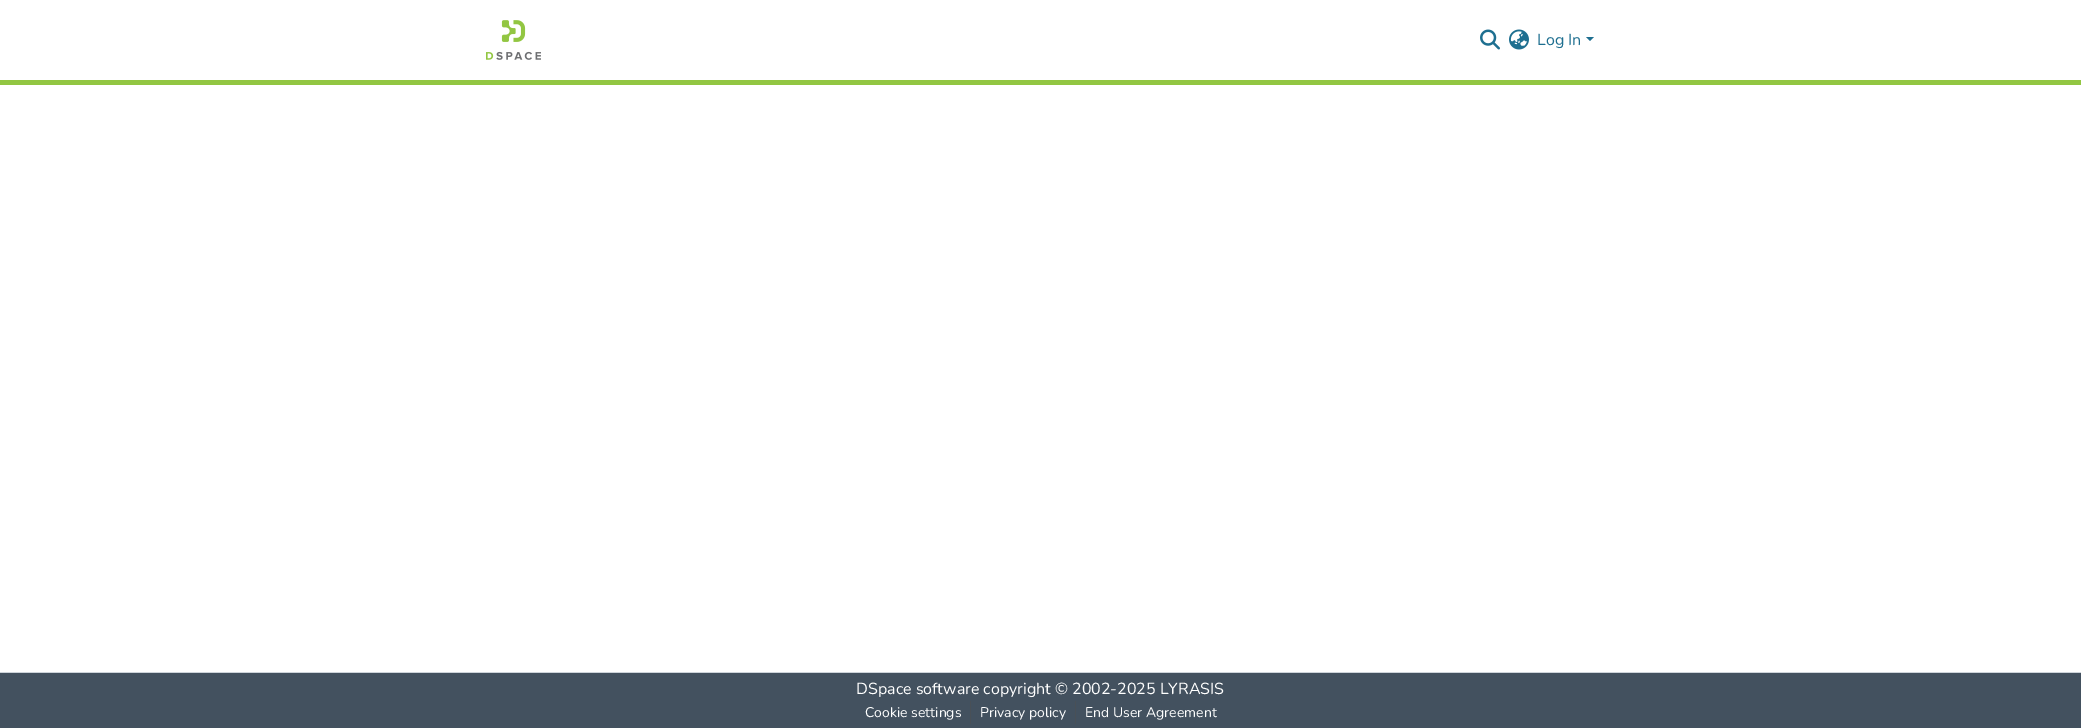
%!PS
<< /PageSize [2081 728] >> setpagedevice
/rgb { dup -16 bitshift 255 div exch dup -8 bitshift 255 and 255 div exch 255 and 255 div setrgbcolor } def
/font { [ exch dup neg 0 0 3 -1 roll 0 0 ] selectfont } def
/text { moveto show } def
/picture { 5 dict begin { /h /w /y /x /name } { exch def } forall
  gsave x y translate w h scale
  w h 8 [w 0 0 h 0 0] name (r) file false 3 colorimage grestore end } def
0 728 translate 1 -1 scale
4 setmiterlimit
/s1 { /Nunito-Regular 16 font 16#1E6F90 rgb } def
/s2 { /Nunito-Regular 16 font 16#FFFFFF rgb } def
/s3 { /Nunito-Regular 14 font 16#FFFFFF rgb } def
16#FFFFFF rgb
0 0 2081 728 rectfill
16#92C642 rgb
0 80 2081 5 rectfill
(pic1.raw) 486 20 55 40 picture
(pic2.raw) 1480 29 20 21 picture
(pic3.raw) 1509 29 20 21 picture
s1
(Log In) 1537 45 text
1586 37 moveto 1594 37 lineto 1590 41 lineto closepath fill
16#43515F rgb
0 673 2081 55 rectfill
16#CED4DA rgb
0 672 2081 1 rectfill
s2
(DSpace software copyright © 2002-2025 LYRASIS) 856 694 text
s3
(Cookie settings) 865 717 text
16#495057 rgb
970 701 1 23 rectfill
s3
(Privacy policy) 980 717 text
16#495057 rgb
1075 701 1 23 rectfill
s3
(End User Agreement) 1085 717 text
showpage
